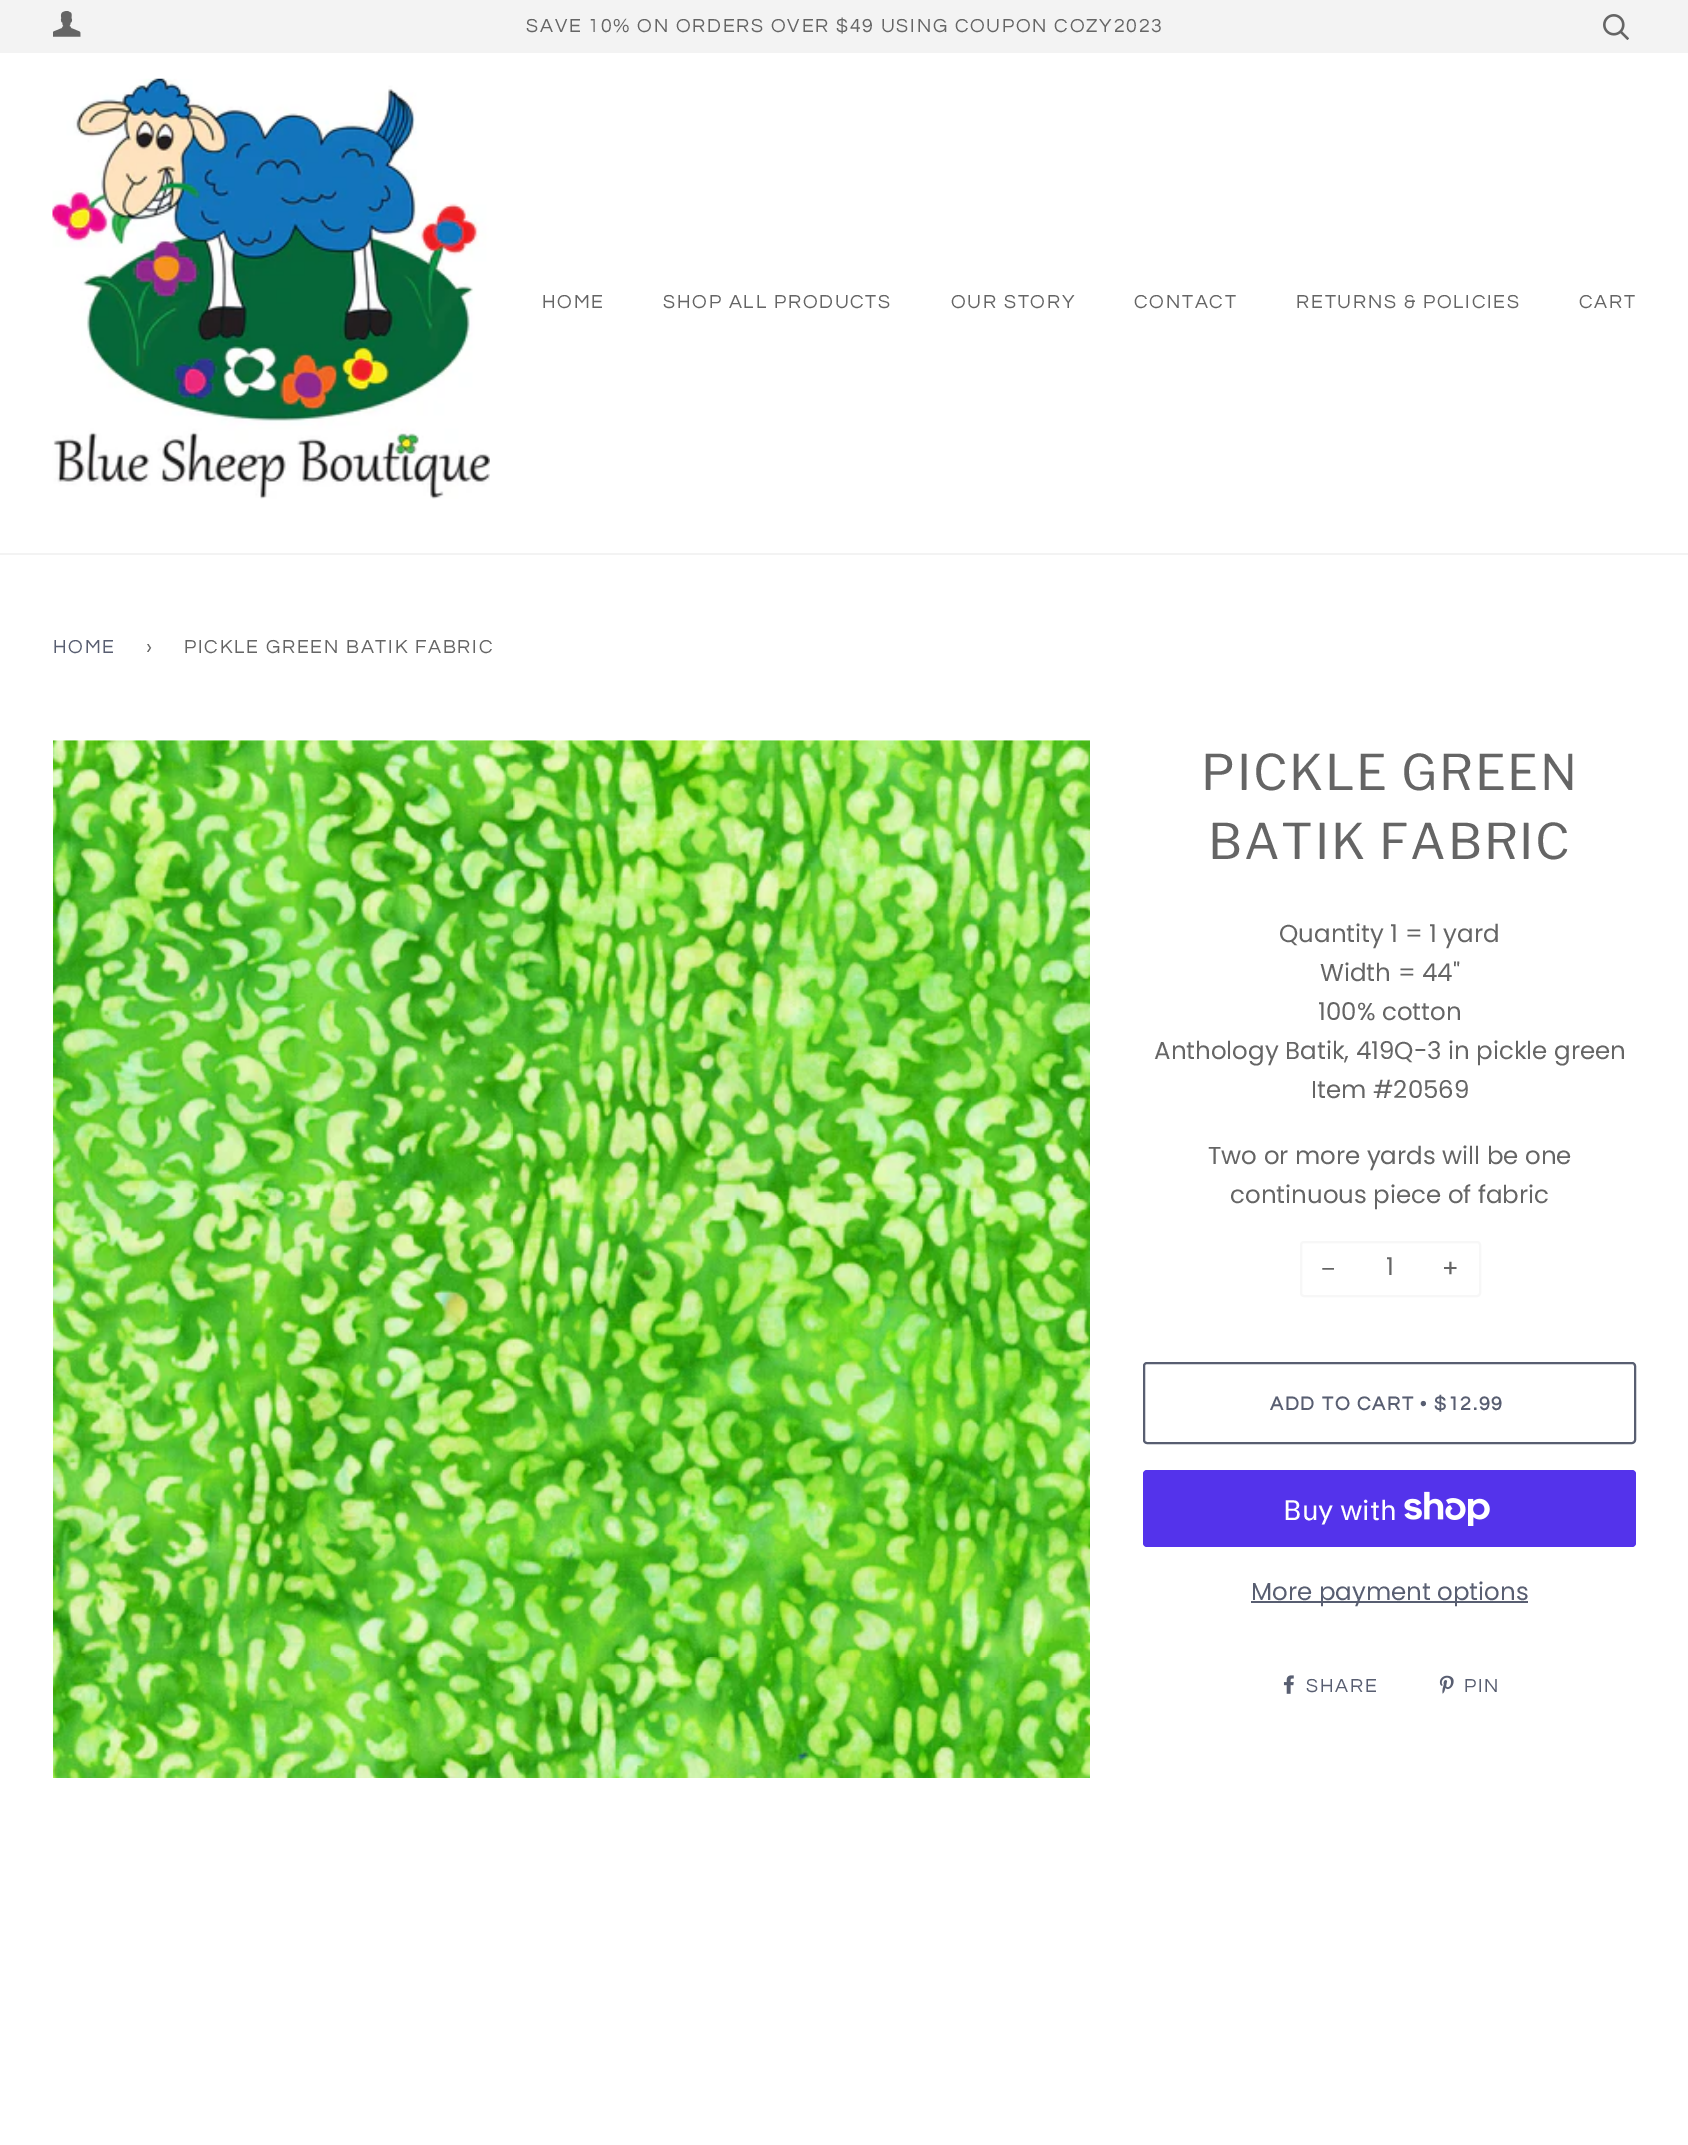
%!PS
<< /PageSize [1688 2145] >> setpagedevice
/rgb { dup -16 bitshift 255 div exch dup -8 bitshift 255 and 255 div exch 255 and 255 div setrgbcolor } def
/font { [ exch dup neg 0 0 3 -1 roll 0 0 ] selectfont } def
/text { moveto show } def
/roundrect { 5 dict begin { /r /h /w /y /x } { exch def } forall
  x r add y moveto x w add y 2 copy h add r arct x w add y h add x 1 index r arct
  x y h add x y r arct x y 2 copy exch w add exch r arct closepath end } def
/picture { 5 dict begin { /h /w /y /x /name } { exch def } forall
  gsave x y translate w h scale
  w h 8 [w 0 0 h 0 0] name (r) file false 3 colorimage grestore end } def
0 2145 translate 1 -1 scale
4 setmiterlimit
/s1 { /Poppins-Regular 24.5 font 16#656565 rgb } def
/s2 { /LiberationSans-Regular 24.5 font 16#656565 rgb } def
/s3 { /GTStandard-Regular 28 font 16#FFFFFF rgb } def
/s4 { /Poppins-Regular 24.5 font 16#585E71 rgb } def
16#FFFFFF rgb
0 0 1688 2145 rectfill
16#F3F3F3 rgb
0 0 1688 53 rectfill
(pic1.raw) 53 11 28 26 picture
/Questrial-Regular 19.6 font
16#656565 rgb
526 32 moveto 1.75 0 (SAVE 10% ON ORDERS OVER $49 USING COUPON COZY2023) ashow
(pic2.raw) 1603 14 26 26 picture
16#F3F3F3 rgb
0 553 1688 2 rectfill
(pic3.raw) 52 78 438 421 picture
16#656565 rgb
542 308 moveto 1.75 0 (HOME) ashow
663 308 moveto 1.75 0 (SHOP ALL PRODUCTS) ashow
951 308 moveto 1.75 0 (OUR STORY) ashow
1134 308 moveto 1.75 0 (CONTACT) ashow
1296 308 moveto 1.75 0 (RETURNS & POLICIES) ashow
1579 308 moveto 1.75 0 (CART) ashow
16#585E71 rgb
53 653 moveto 1.75 0 (HOME) ashow
16#656565 rgb
146 653 moveto 1.75 0 (›) ashow
184 653 moveto 1.75 0 (PICKLE GREEN BATIK FABRIC) ashow
(pic4.raw) 53 740 1037 1038 picture
/LibreFranklin-Regular 49 font
1201 790 moveto 1.75 0 (PICKLE GREEN) ashow
1208 859 moveto 1.75 0 (BATIK FABRIC) ashow
s1
(Quantity 1 = 1 yard) 1279 942 text
(Width = 44") 1320 981 text
(100% cotton) 1318 1020 text
(Anthology Batik, 419Q-3 in pickle green) 1154 1059 text
(Item #20569) 1311 1098 text
(Two or more yards will be one) 1208 1164 text
(continuous piece of fabric) 1230 1203 text
16#F7F7F7 rgb
2 setlinewidth
1301 1242 179 54 3 roundrect stroke
s2
(−) 1321 1277 text
s1
(1) 1386 1275 text
(+) 1442 1277 text
16#585E71 rgb
1144 1363 491 80 3 roundrect stroke
/Questrial-Bold 19.6 font
1270 1410 moveto 1.75 0 (ADD TO CART) ashow
/LiberationSerif-Bold 19.6 font
1420 1410 moveto 1.75 0 (•) ashow
/Questrial-Bold 19.6 font
1434 1410 moveto 1.75 0 ($12.99) ashow
16#5433EB rgb
1143 1470 493 77 4 roundrect fill
s3
(Buy with) 1283 1520 text
(pic5.raw) 1404 1491 86 35 picture
16#585E71 rgb
1251 1601 277 2 rectfill
s4
(More payment options) 1251 1600 text
(pic6.raw) 1283 1675 11 19 picture
/Questrial-Regular 19.6 font
1306 1692 moveto 1.75 0 (SHARE) ashow
(pic7.raw) 1439 1675 15 19 picture
1464 1692 moveto 1.75 0 (PIN) ashow
showpage
